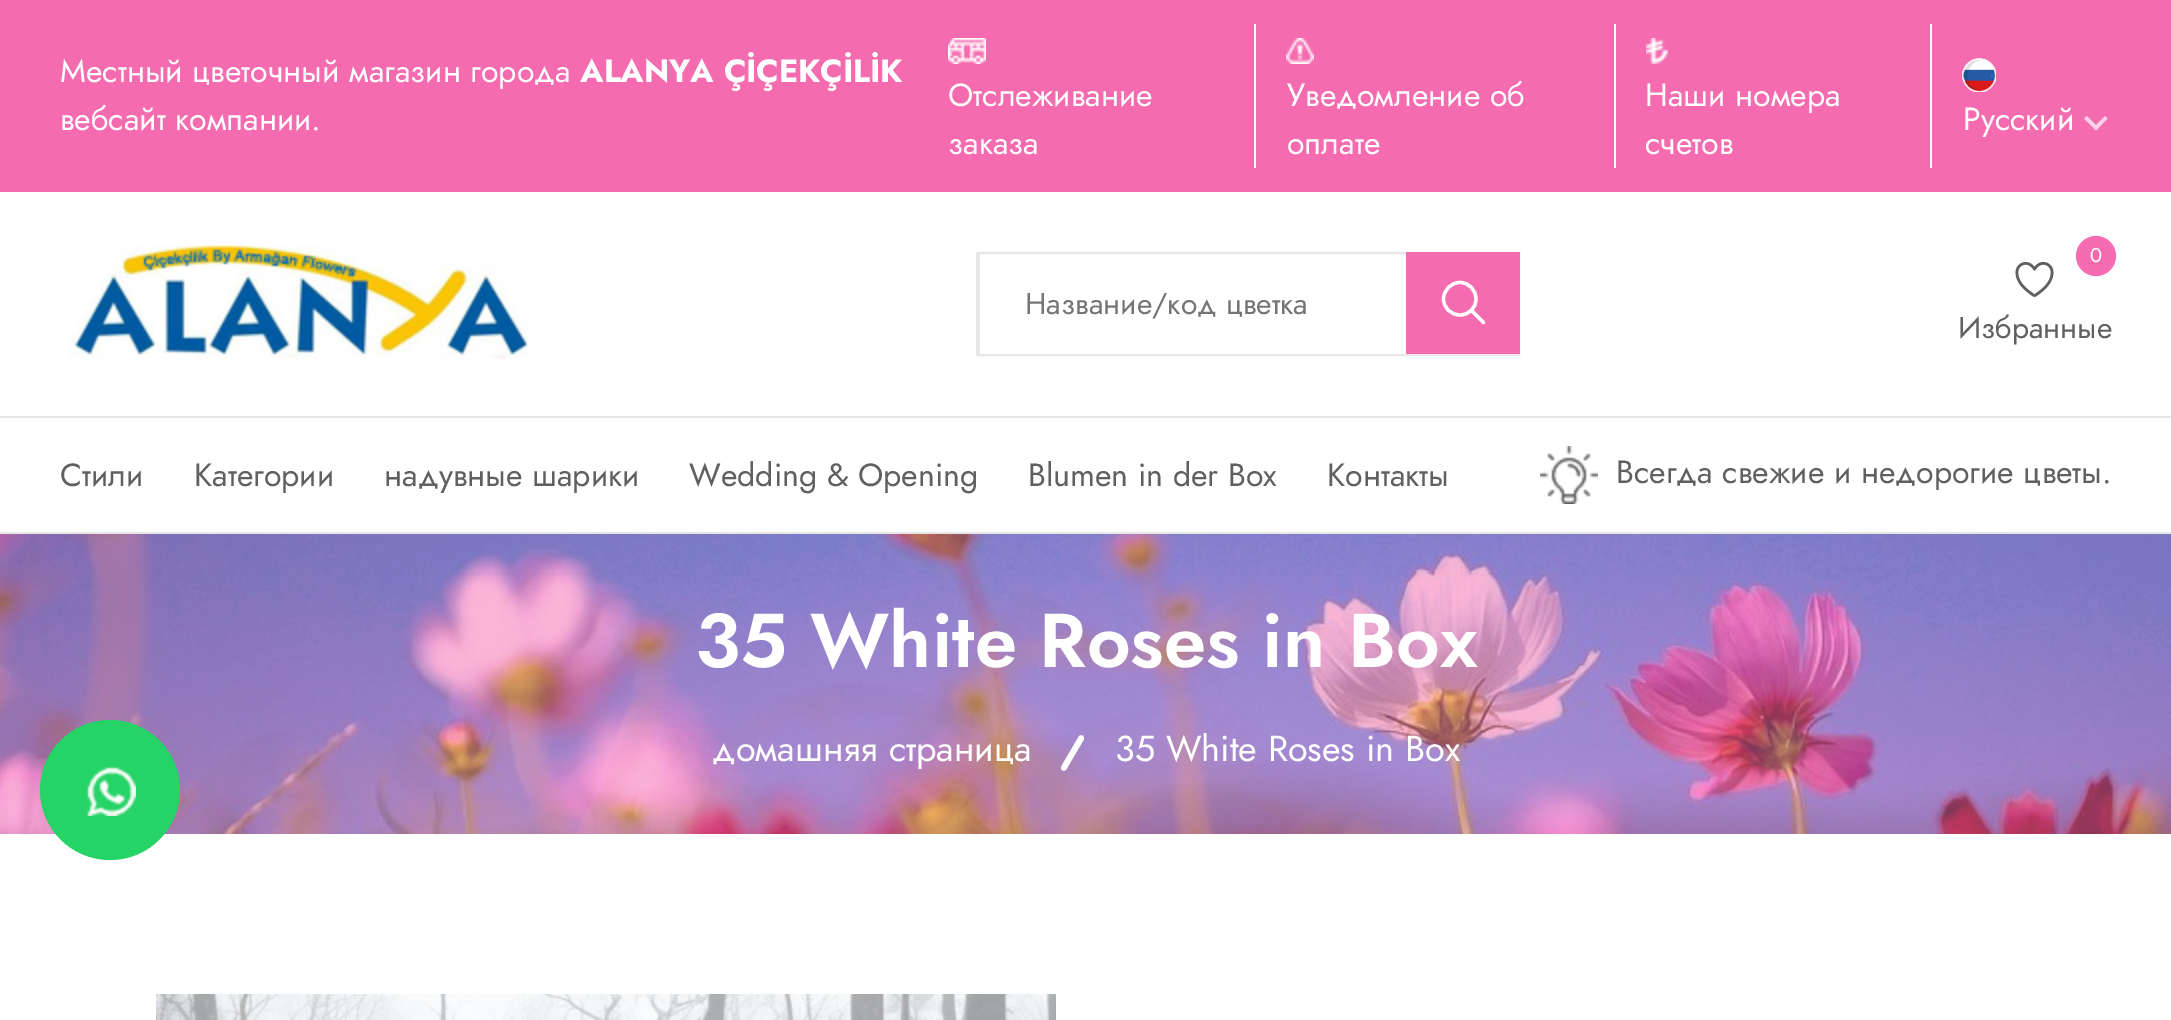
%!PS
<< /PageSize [2171 1020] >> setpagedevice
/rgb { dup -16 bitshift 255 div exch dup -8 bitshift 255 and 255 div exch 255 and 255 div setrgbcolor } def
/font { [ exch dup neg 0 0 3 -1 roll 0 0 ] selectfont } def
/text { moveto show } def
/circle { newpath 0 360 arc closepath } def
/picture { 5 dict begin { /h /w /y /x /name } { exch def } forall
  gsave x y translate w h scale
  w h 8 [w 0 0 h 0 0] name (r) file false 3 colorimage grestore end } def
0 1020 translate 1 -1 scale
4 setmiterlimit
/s1 { /Jost-Regular 32 font 16#FFFFFF rgb } def
/s2 { /Jost-Bold 32 font 16#FFFFFF rgb } def
/s3 { /Jost-Regular 30 font 16#757575 rgb } def
/s4 { /Jost-Regular 20 font 16#FFFFFF rgb } def
/s5 { /Jost-Regular 30 font 16#606060 rgb } def
/s6 { /Jost-Regular 32 font 16#606060 rgb } def
/s7 { /Jost-SemiBold 76 font 16#FFFFFF rgb } def
/s8 { /Jost-Regular 36 font 16#FFFFFF rgb } def
16#FFFFFF rgb
0 0 2171 1020 rectfill
16#F46BAF rgb
0 0 2171 192 rectfill
s1
(Местный цветочный магазин города) 60 82 text
s2
(ALANYA ÇİÇEKÇİLİK) 580 82 text
s1
(вебсайт компании.) 60 130 text
(pic1.raw) 948 38 38 26 picture
1254 24 2 144 rectfill
(Отслеживание) 948 106 text
(заказа) 948 154 text
(pic2.raw) 1286 38 28 26 picture
1614 24 2 144 rectfill
(Уведомление об) 1287 106 text
(оплате) 1287 154 text
(pic3.raw) 1646 38 22 26 picture
1930 24 2 144 rectfill
(Наши номера) 1645 106 text
(счетов) 1645 154 text
(pic4.raw) 1962 58 34 34 picture
(Pусский) 1963 130 text
16#FCD3E7 rgb
2105 116 moveto 2096 125 lineto 2087 116 lineto 2084 118.5 lineto 2096 130.5 lineto 2107.5 118.5 lineto closepath fill
(pic5.raw) 68 245 461 114 picture
16#E7E7E7 rgb
2 setlinewidth
977 253 542 102 rectstroke
978 254 2 100 rectfill
s3
(Название/код цветка) 1025 314 text
16#F46BAF rgb
1406 252 114 102 rectfill
16#FFFFFF rgb
3.3 setlinewidth
1460 282.5 moveto 1451 282.5 1443.5 290 1443.5 299 curveto 1443.5 308 1451 315 1460 315 curveto 1469 315 1476 308 1476 299 curveto 1476 290 1469 282.5 1460 282.5 curveto closepath stroke
1 setlinecap
1472 311 moveto 1483.5 322.5 lineto stroke
16#F46BAF rgb
2096 256 20 circle fill
s4
(0) 2090 262 text
(pic6.raw) 2015 261 39 36 picture
s5
(Избранные) 1958 338 text
16#E7E7E7 rgb
0 416 2171 2 rectfill
0 532 2171 2 rectfill
s6
(Стили) 60 486 text
(Категории) 194 486 text
(надувные шарики) 384 486 text
(Wedding & Opening) 689 486 text
(Blumen in der Box) 1028 486 text
(Контакты) 1327 486 text
(pic7.raw) 1540 446 58 58 picture
(Всегда свежие и недорогие цветы.) 1616 483 text
16#F46BAF rgb
0 534 2171 300 rectfill
(pic8.raw) 0 534 2171 300 picture
s7
(35 White Roses in Box) 695 667 text
s8
(домашняя страница) 712 761 text
1082.5 735.5 moveto 1084 736.5 1084.5 738.5 1083.5 740 curveto 1066.5 769 lineto 1065.5 770.5 1064 771 1062.5 770.5 curveto 1061 769.5 1060.5 767.5 1061.5 766 curveto 1078.5 737 lineto 1079 735.5 1081 735 1082.5 735.5 curveto closepath fill
(35 White Roses in Box) 1115 761 text
(pic9.raw) 156 994 900 26 picture
16#25D366 rgb
110 790 70 circle fill
(pic10.raw) 87 767 49 49 picture
showpage
